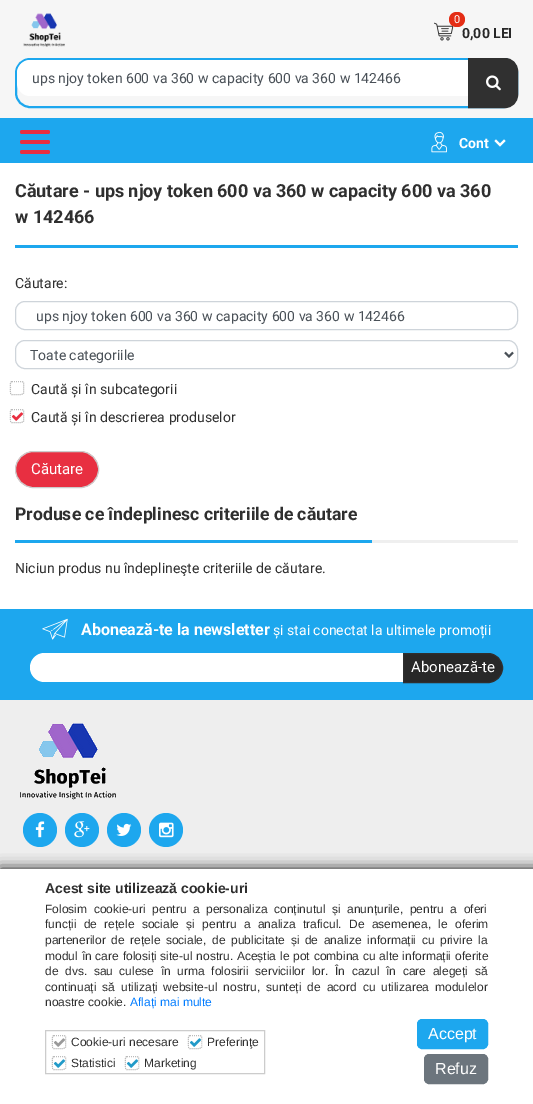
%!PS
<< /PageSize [533 1104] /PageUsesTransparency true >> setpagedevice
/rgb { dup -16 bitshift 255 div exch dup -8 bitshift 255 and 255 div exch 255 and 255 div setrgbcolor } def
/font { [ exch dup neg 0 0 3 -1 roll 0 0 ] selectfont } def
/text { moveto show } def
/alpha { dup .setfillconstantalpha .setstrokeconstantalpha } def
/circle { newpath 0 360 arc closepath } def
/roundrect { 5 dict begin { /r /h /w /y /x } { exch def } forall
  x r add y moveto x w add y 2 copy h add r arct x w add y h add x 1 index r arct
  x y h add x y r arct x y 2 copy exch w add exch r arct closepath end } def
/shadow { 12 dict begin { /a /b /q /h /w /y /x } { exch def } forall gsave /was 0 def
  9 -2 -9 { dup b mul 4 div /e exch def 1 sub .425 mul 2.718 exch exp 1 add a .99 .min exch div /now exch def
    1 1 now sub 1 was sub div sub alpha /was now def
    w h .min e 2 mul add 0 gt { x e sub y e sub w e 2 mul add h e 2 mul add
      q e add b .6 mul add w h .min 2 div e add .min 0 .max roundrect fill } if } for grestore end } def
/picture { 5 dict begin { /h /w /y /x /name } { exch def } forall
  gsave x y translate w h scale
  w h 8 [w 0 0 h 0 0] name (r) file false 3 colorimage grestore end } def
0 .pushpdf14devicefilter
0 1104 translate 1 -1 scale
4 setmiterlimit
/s1 { /Roboto-Regular 11 font 16#FFFFFF rgb } def
/s2 { /Roboto-Bold 14 font 16#282828 rgb } def
/s3 { /Roboto-Regular 14 font 16#495057 rgb } def
/s4 { /Roboto-Bold 14 font 16#FFFFFF rgb } def
/s5 { /Roboto-Bold 18 font 16#2F2F2F rgb } def
/s6 { /Roboto-Regular 14 font 16#2F2F2F rgb } def
/s7 { /Roboto-Regular 15 font 16#FFFFFF rgb } def
/s8 { /Roboto-Bold 17.6 font 16#2F2F2F rgb } def
/s9 { /Roboto-Bold 16 font 16#FFFFFF rgb } def
/s10 { /Roboto-Regular 14 font 16#FFFFFF rgb } def
/s11 { /LiberationSans-Bold 14 font 16#2F2F2F rgb } def
/s12 { /LiberationSans-Regular 12 font 16#2F2F2F rgb } def
/s13 { /LiberationSans-Regular 12 font 16#007BFF rgb } def
/s14 { /LiberationSans-Regular 16 font 16#FFFFFF rgb } def
16#F6F6F6 rgb
0 0 533 1104 rectfill
(pic1.raw) 23 13 42 34 picture
(pic2.raw) 434 22 20 19 picture
16#E42D15 rgb
449 12 16 15 7.5 roundrect fill
s1
(0) 454 23 text
s2
(0,00 LEI) 462 38 text
16#1DA7EE rgb
2 setlinewidth
16 59 501 48 14 roundrect stroke
16#FFFFFF rgb
30 60 moveto 468 60 lineto 468 96 lineto 30 96 lineto 23 96 17 90 17 83 curveto 17 73 lineto 17 66 23 60 30 60 curveto closepath fill
s3
(ups njoy token 600 va 360 w capacity 600 va 360 w 142466) 32 83 text
16#303030 rgb
468.5 58.5 moveto 505 58.5 lineto 512 58.5 517.5 64 517.5 71 curveto 517.5 95 lineto 517.5 102 512 107.5 505 107.5 curveto 468.5 107.5 lineto closepath gsave fill grestore
1 setlinewidth
stroke
(pic3.raw) 486 75 15 16 picture
16#1DA7EE rgb
0 118 533 45 rectfill
16#E82F41 rgb
20 130 30 4 2 roundrect fill
20 140 30 4 2 roundrect fill
20 150 30 4 2 roundrect fill
(pic4.raw) 431 131 16 22 picture
s4
(Cont) 459 148 text
(pic5.raw) 494 139 12 8 picture
0 163 533 446 rectfill
16#1DA7EE rgb
15 245 503 3 rectfill
s5
(Căutare - ups njoy token 600 va 360 w capacity 600 va 360) 15 197 text
(w 142466) 15 223 text
s6
(Căutare:) 15 288 text
16#CED4DA rgb
15.5 301.5 502 28 9.5 roundrect stroke
s3
(ups njoy token 600 va 360 w capacity 600 va 360 w 142466) 36 321 text
16#CED4DA rgb
15.5 340.5 502 28 9.5 roundrect stroke
16#495057 rgb
2 setlinewidth
505 352.5 moveto 509 356.5 lineto 513 352.5 lineto stroke
(Toate categoriile) 30 360 text
16#BBBBBB rgb
1 setlinewidth
[1 1] 0 setdash
12 381.5 moveto 20.5 381.5 lineto 25 381.5 23.5 383.5 23.5 388 curveto 23.5 392.5 25 394.5 20.5 394.5 curveto 12 394.5 lineto 9.5 394.5 10.5 389.5 10.5 388 curveto 10.5 386.5 9.5 381.5 12 381.5 curveto closepath stroke
s6
(Caută și în subcategorii) 31 394 text
16#BBBBBB rgb
12 409.5 moveto 20.5 409.5 lineto 25 409.5 23.5 411.5 23.5 416 curveto 23.5 420.5 25 422.5 20.5 422.5 curveto 12 422.5 lineto 9.5 422.5 10.5 417.5 10.5 416 curveto 10.5 414.5 9.5 409.5 12 409.5 curveto closepath stroke
(pic6.raw) 11 412 12 9 picture
s6
(Caută și în descrierea produselor) 31 422 text
16#E82F41 rgb
15.5 451.5 83 36 18 roundrect gsave fill grestore
16#CCCCCC rgb
[] 0 setdash
stroke
s7
(Căutare) 31 474 text
16#EFEFEF rgb
372 540 146 3 rectfill
16#1DA7EE rgb
15 540 357 3 rectfill
s8
(Produse ce îndeplinesc criteriile de căutare) 15 520 text
s6
(Niciun produs nu îndeplineşte criteriile de căutare.) 15 573 text
16#1DA7EE rgb
0 609 533 91 rectfill
(pic7.raw) 42 618 26 22 picture
s9
(Abonează-te la newsletter) 81 635 text
s10
(și stai conectat la ultimele promoții) 273 635 text
44.5 653 moveto 403 653 lineto 403 682 lineto 44.5 682 lineto 36.5 682 30 675.5 30 667.5 curveto 30 659.5 36.5 653 44.5 653 curveto closepath fill
16#282828 rgb
403.5 653.5 moveto 488 653.5 lineto 496 653.5 502.5 660 502.5 668 curveto 502.5 676 496 682.5 488 682.5 curveto 403.5 682.5 lineto closepath gsave fill grestore
16#2F2F2F rgb
stroke
s7
(Abonează-te) 411 672 text
16#EEEEEE rgb
0 700 533 169 rectfill
(pic8.raw) 20 723 96 77 picture
16#1DA7EE rgb
40 830 17 circle fill
(pic9.raw) 35 821 10 17 picture
82 830 17 circle fill
(pic10.raw) 74 821 16 17 picture
124 830 17 circle fill
(pic11.raw) 116 823 16 13 picture
166 830 17 circle fill
(pic12.raw) 159 822 15 16 picture
16#121212 rgb
0 869 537 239 0 7 1 shadow
16#FFFFFF rgb
0 869 533 235 rectfill
s11
(Acest site utilizează cookie-uri) 45 893 text
/LiberationSans-Regular 12 font
45 913 moveto 3.25 0 32 (Folosim cookie-uri pentru a personaliza conținutul și anunțurile, pentru a oferi) widthshow
45 928 moveto 4 0 32 (funcții de rețele sociale și pentru a analiza traficul. De asemenea, le oferim) widthshow
45 944 moveto 2.25 0 32 (partenerilor de rețele sociale, de publicitate și de analize informații cu privire la) widthshow
45 960 moveto 0.5 0 32 (modul în care folosiți site-ul nostru. Aceștia le pot combina cu alte informații oferite) widthshow
45 975 moveto 3.25 0 32 (de dvs. sau culese în urma folosirii serviciilor lor. În cazul în care alegeți să) widthshow
45 991 moveto 2.6 0 32 (continuați să utilizați website-ul nostru, sunteți de acord cu utilizarea modulelor) widthshow
(noastre cookie.) 45 1006 text
s13
(Aflați mai multe) 130 1006 text
16#CCCCCC rgb
45.5 1030.5 219 43 rectstroke
16#BBBBBB rgb
[1 1] 0 setdash
54 1035.5 moveto 62.5 1035.5 lineto 67 1035.5 65.5 1037.5 65.5 1042 curveto 65.5 1046.5 67 1048.5 62.5 1048.5 curveto 54 1048.5 lineto 51.5 1048.5 52.5 1043.5 52.5 1042 curveto 52.5 1040.5 51.5 1035.5 54 1035.5 curveto closepath stroke
(pic13.raw) 54 1038 11 9 picture
s12
(Cookie-uri necesare) 71 1046 text
16#BBBBBB rgb
190 1035.5 moveto 198.5 1035.5 lineto 203 1035.5 201.5 1037.5 201.5 1042 curveto 201.5 1046.5 203 1048.5 198.5 1048.5 curveto 190 1048.5 lineto 187.5 1048.5 188.5 1043.5 188.5 1042 curveto 188.5 1040.5 187.5 1035.5 190 1035.5 curveto closepath stroke
(pic14.raw) 189 1038 13 9 picture
s12
(Preferinţe) 207 1046 text
16#BBBBBB rgb
54 1056.5 moveto 62.5 1056.5 lineto 67 1056.5 65.5 1058.5 65.5 1063 curveto 65.5 1067.5 67 1069.5 62.5 1069.5 curveto 54 1069.5 lineto 51.5 1069.5 52.5 1064.5 52.5 1063 curveto 52.5 1061.5 51.5 1056.5 54 1056.5 curveto closepath stroke
(pic14.raw) 53 1059 13 9 picture
s12
(Statistici) 71 1067 text
16#BBBBBB rgb
127 1056.5 moveto 135.5 1056.5 lineto 140 1056.5 138.5 1058.5 138.5 1063 curveto 138.5 1067.5 140 1069.5 135.5 1069.5 curveto 127 1069.5 lineto 124.5 1069.5 125.5 1064.5 125.5 1063 curveto 125.5 1061.5 124.5 1056.5 127 1056.5 curveto closepath stroke
(pic14.raw) 126 1059 13 9 picture
s12
(Marketing) 144 1067 text
16#1DA7EE rgb
417.5 1019.5 70 29 4.5 roundrect gsave fill grestore
[] 0 setdash
stroke
s14
(Accept) 428 1039 text
16#6C757D rgb
424.5 1054.5 63 29 4.5 roundrect gsave fill grestore
stroke
s14
(Refuz) 435 1074 text
.poppdf14devicefilter showpage
